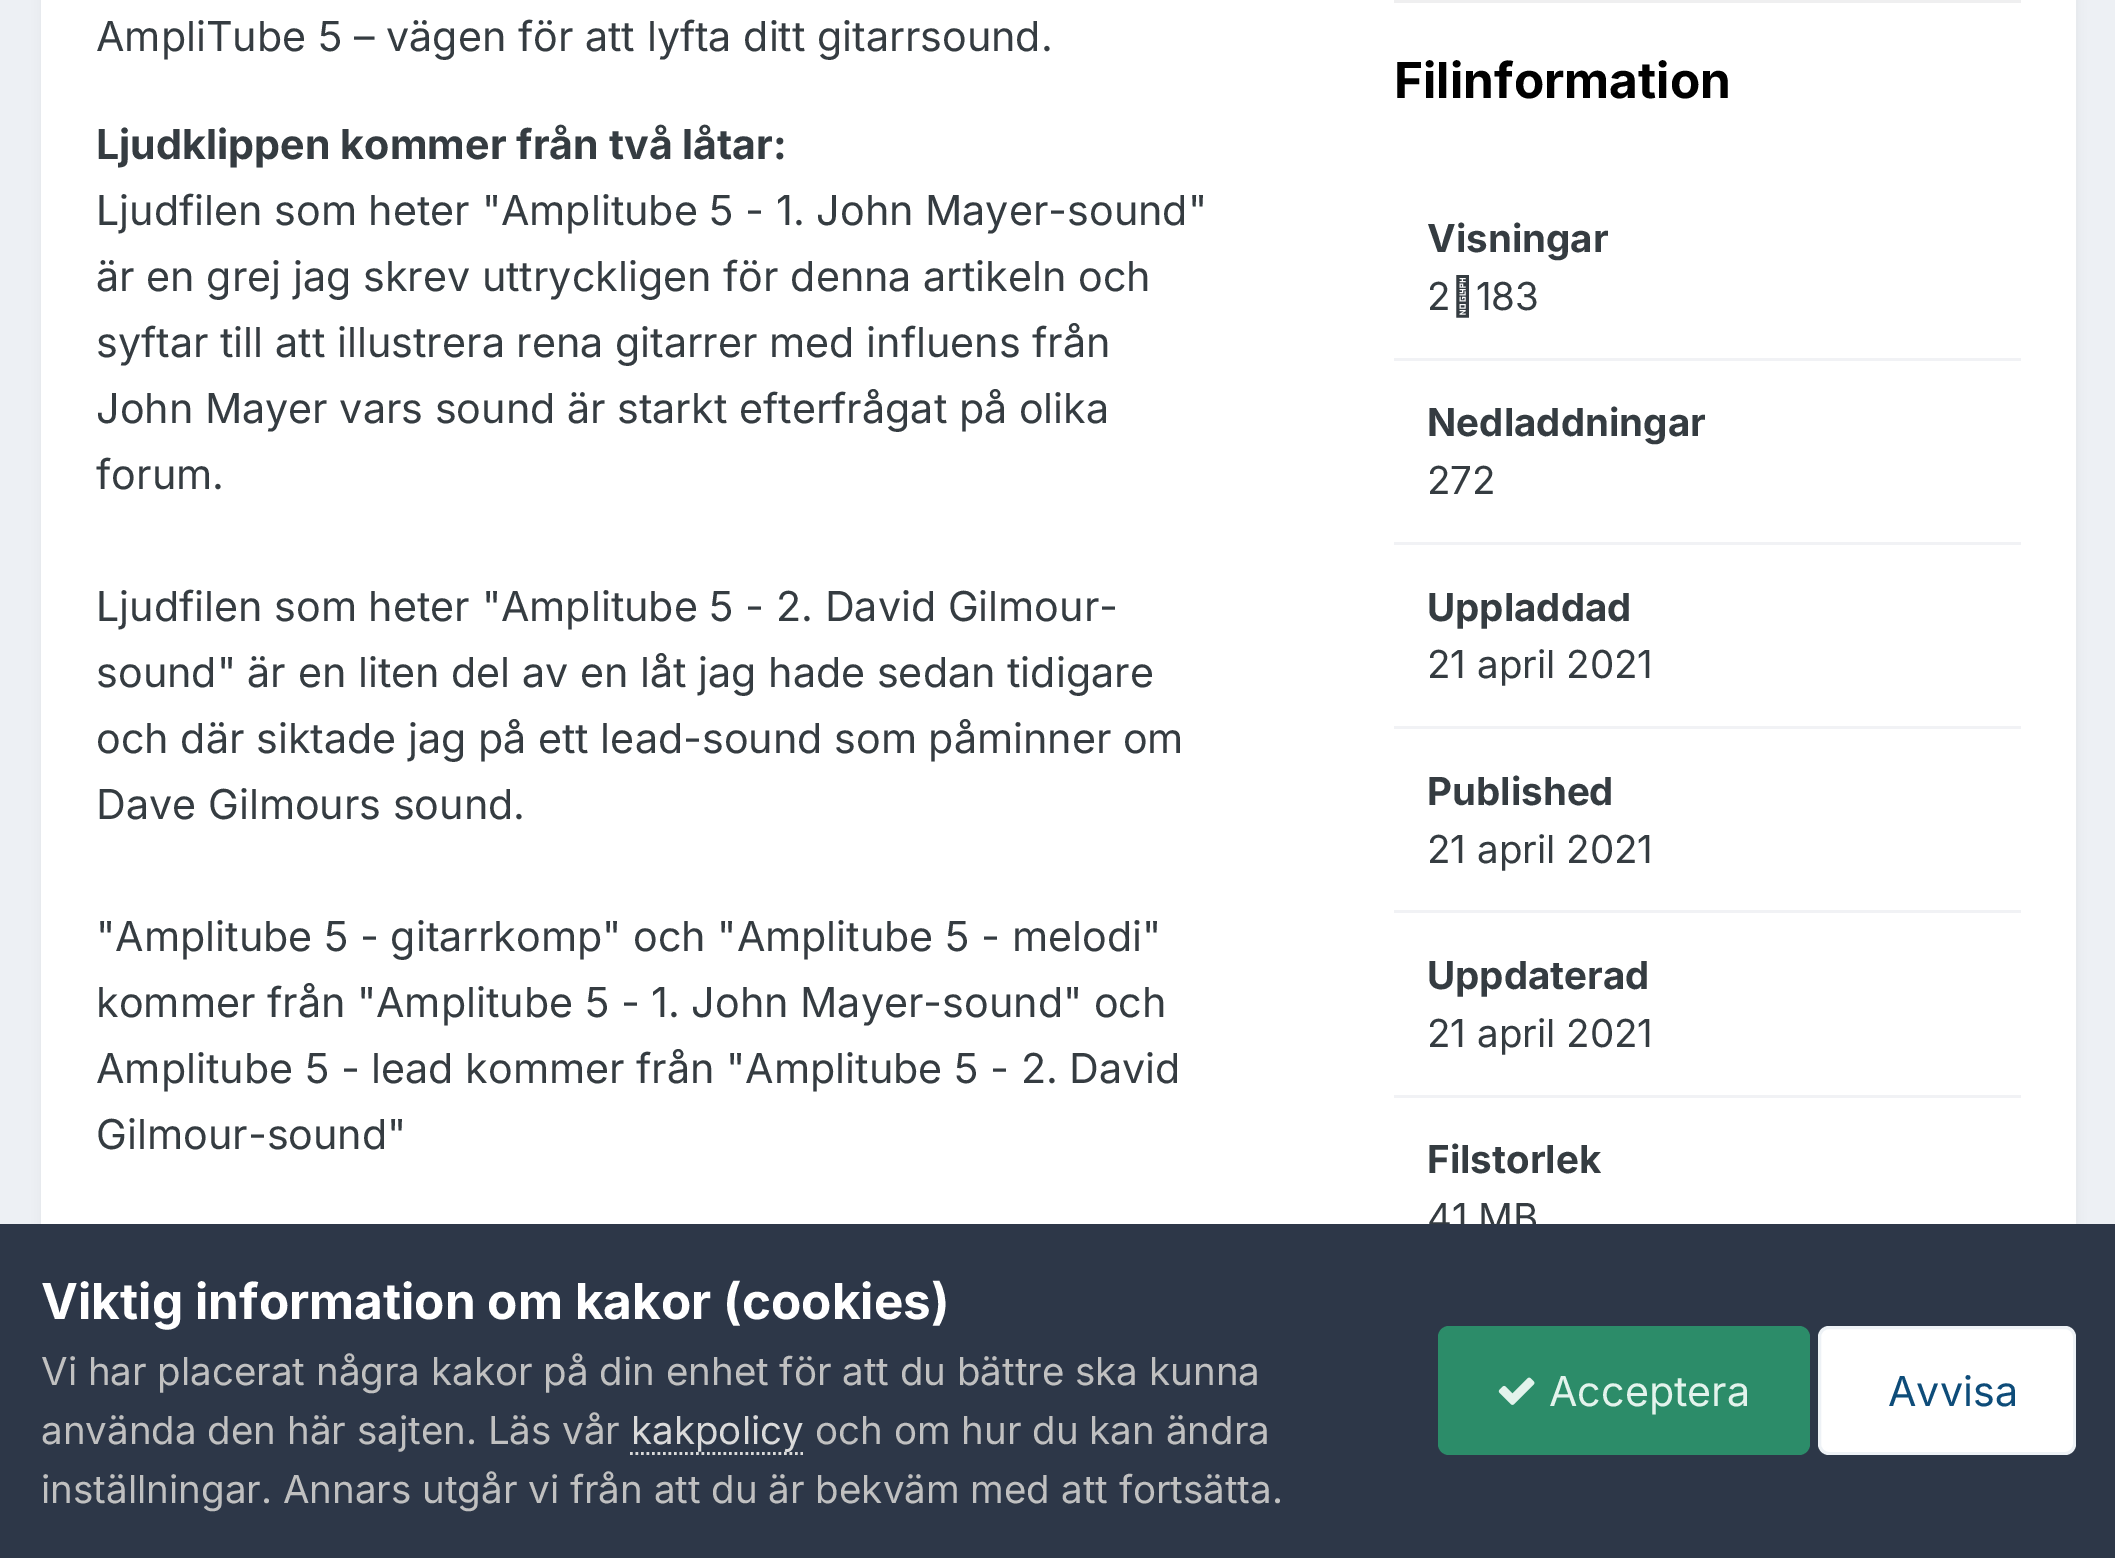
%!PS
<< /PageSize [2115 1558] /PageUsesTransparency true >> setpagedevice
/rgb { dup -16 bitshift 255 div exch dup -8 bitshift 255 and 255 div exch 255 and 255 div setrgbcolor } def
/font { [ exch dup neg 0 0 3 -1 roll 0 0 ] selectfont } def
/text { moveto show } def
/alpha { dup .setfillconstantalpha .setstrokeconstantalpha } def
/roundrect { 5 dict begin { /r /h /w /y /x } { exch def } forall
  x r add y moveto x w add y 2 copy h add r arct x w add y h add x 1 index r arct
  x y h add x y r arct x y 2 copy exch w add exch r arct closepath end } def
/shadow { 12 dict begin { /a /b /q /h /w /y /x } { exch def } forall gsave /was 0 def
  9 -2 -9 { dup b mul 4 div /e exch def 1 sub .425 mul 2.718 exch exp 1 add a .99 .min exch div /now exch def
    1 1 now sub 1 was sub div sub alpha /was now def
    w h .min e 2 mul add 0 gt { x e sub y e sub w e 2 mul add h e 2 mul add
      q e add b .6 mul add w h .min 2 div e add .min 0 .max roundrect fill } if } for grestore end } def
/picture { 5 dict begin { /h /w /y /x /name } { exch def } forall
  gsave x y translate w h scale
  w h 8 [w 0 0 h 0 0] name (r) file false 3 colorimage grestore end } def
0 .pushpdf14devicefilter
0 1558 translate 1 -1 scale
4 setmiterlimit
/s1 { /Inter-Regular 41.25 font 16#353C41 rgb } def
/s2 { /Inter-Bold 41.25 font 16#353C41 rgb } def
/s3 { /Inter-Bold 49.5 font 16#000000 rgb } def
/s4 { /Inter-Bold 38.5 font 16#353C41 rgb } def
/s5 { /Inter-Regular 38.5 font 16#353C41 rgb } def
/s6 { /Inter-Bold 49.5 font 16#FFFFFF rgb } def
/s7 { /Inter-Regular 38.5 font 16#C0C0C0 rgb } def
/s8 { /Inter-Regular 38.5 font 16#DADADA rgb } def
/s9 { /Inter-Regular 41.25 font 16#E3F3EC rgb } def
/s10 { /Inter-Regular 41.25 font 16#0E4C79 rgb } def
16#EDF0F4 rgb
0 0 2115 1558 rectfill
16#2D3748 rgb
44 -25 2030 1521 8 5.5 0.1 shadow
16#FFFFFF rgb
41 0 2035 1224 rectfill
s1
(AmpliTube 5 – vägen för att lyfta ditt gitarrsound.) 96 51 text
s2
(Ljudklippen kommer från två låtar:) 96 159 text
s1
(Ljudfilen som heter "Amplitube 5 - 1. John Mayer-sound") 96 225 text
(är en grej jag skrev uttryckligen för denna artikeln och) 96 291 text
(syftar till att illustrera rena gitarrer med influens från) 96 357 text
(John Mayer vars sound är starkt efterfrågat på olika) 96 423 text
(forum.) 96 489 text
(Ljudfilen som heter "Amplitube 5 - 2. David Gilmour-) 96 621 text
(sound" är en liten del av en låt jag hade sedan tidigare) 96 687 text
(och där siktade jag på ett lead-sound som påminner om) 96 753 text
(Dave Gilmours sound.) 96 819 text
("Amplitube 5 - gitarrkomp" och "Amplitube 5 - melodi") 96 951 text
(kommer från "Amplitube 5 - 1. John Mayer-sound" och) 96 1017 text
(Amplitube 5 - lead kommer från "Amplitube 5 - 2. David) 96 1083 text
(Gilmour-sound") 96 1149 text
16#EFEFF0 rgb
1394 0 627 3 rectfill
s3
(Filinformation) 1394 98 text
16#F1F2F5 rgb
1394 358 627 3 rectfill
s4
(Visningar) 1427 252 text
s5
(2 183) 1427 310 text
16#F1F2F5 rgb
1394 542 627 3 rectfill
s4
(Nedladdningar) 1427 436 text
s5
(272) 1427 494 text
16#F1F2F5 rgb
1394 726 627 3 rectfill
s4
(Uppladdad) 1427 621 text
s5
(21 april 2021) 1427 678 text
16#F1F2F5 rgb
1394 910 627 3 rectfill
s4
(Published) 1427 805 text
s5
(21 april 2021) 1427 863 text
16#F1F2F5 rgb
1394 1095 627 3 rectfill
s4
(Uppdaterad) 1427 989 text
s5
(21 april 2021) 1427 1047 text
s4
(Filstorlek) 1427 1173 text
s5
(41 MB) 1427 1231 text
16#2D3748 rgb
0 1224 2115 334 rectfill
s6
(Viktig information om kakor \(cookies\)) 41 1319 text
s7
(Vi har placerat några kakor på din enhet för att du bättre ska kunna) 41 1385 text
(använda den här sajten. Läs vår) 41 1444 text
s8
(kakpolicy) 631 1444 text
2.8 setlinewidth
[2.75 2.75] 0 setdash
630 1453.5 moveto 803 1453.5 lineto stroke
s7
(och om hur du kan ändra) 815 1444 text
(inställningar. Annars utgår vi från att du är bekväm med att fortsätta.) 41 1503 text
16#2C8C69 rgb
1438 1326 372 129 11 roundrect fill
(pic1.raw) 1498 1377 37 28 picture
s9
(Acceptera) 1549 1406 text
16#FFFFFF rgb
1818 1326 258 129 11 roundrect fill
0.07 alpha
16#0E4C79 rgb
3 setlinewidth
[] 0 setdash
1819.5 1327.5 255 126 9.5 roundrect stroke
1 alpha
(Avvisa) 1888 1406 text
.poppdf14devicefilter showpage
